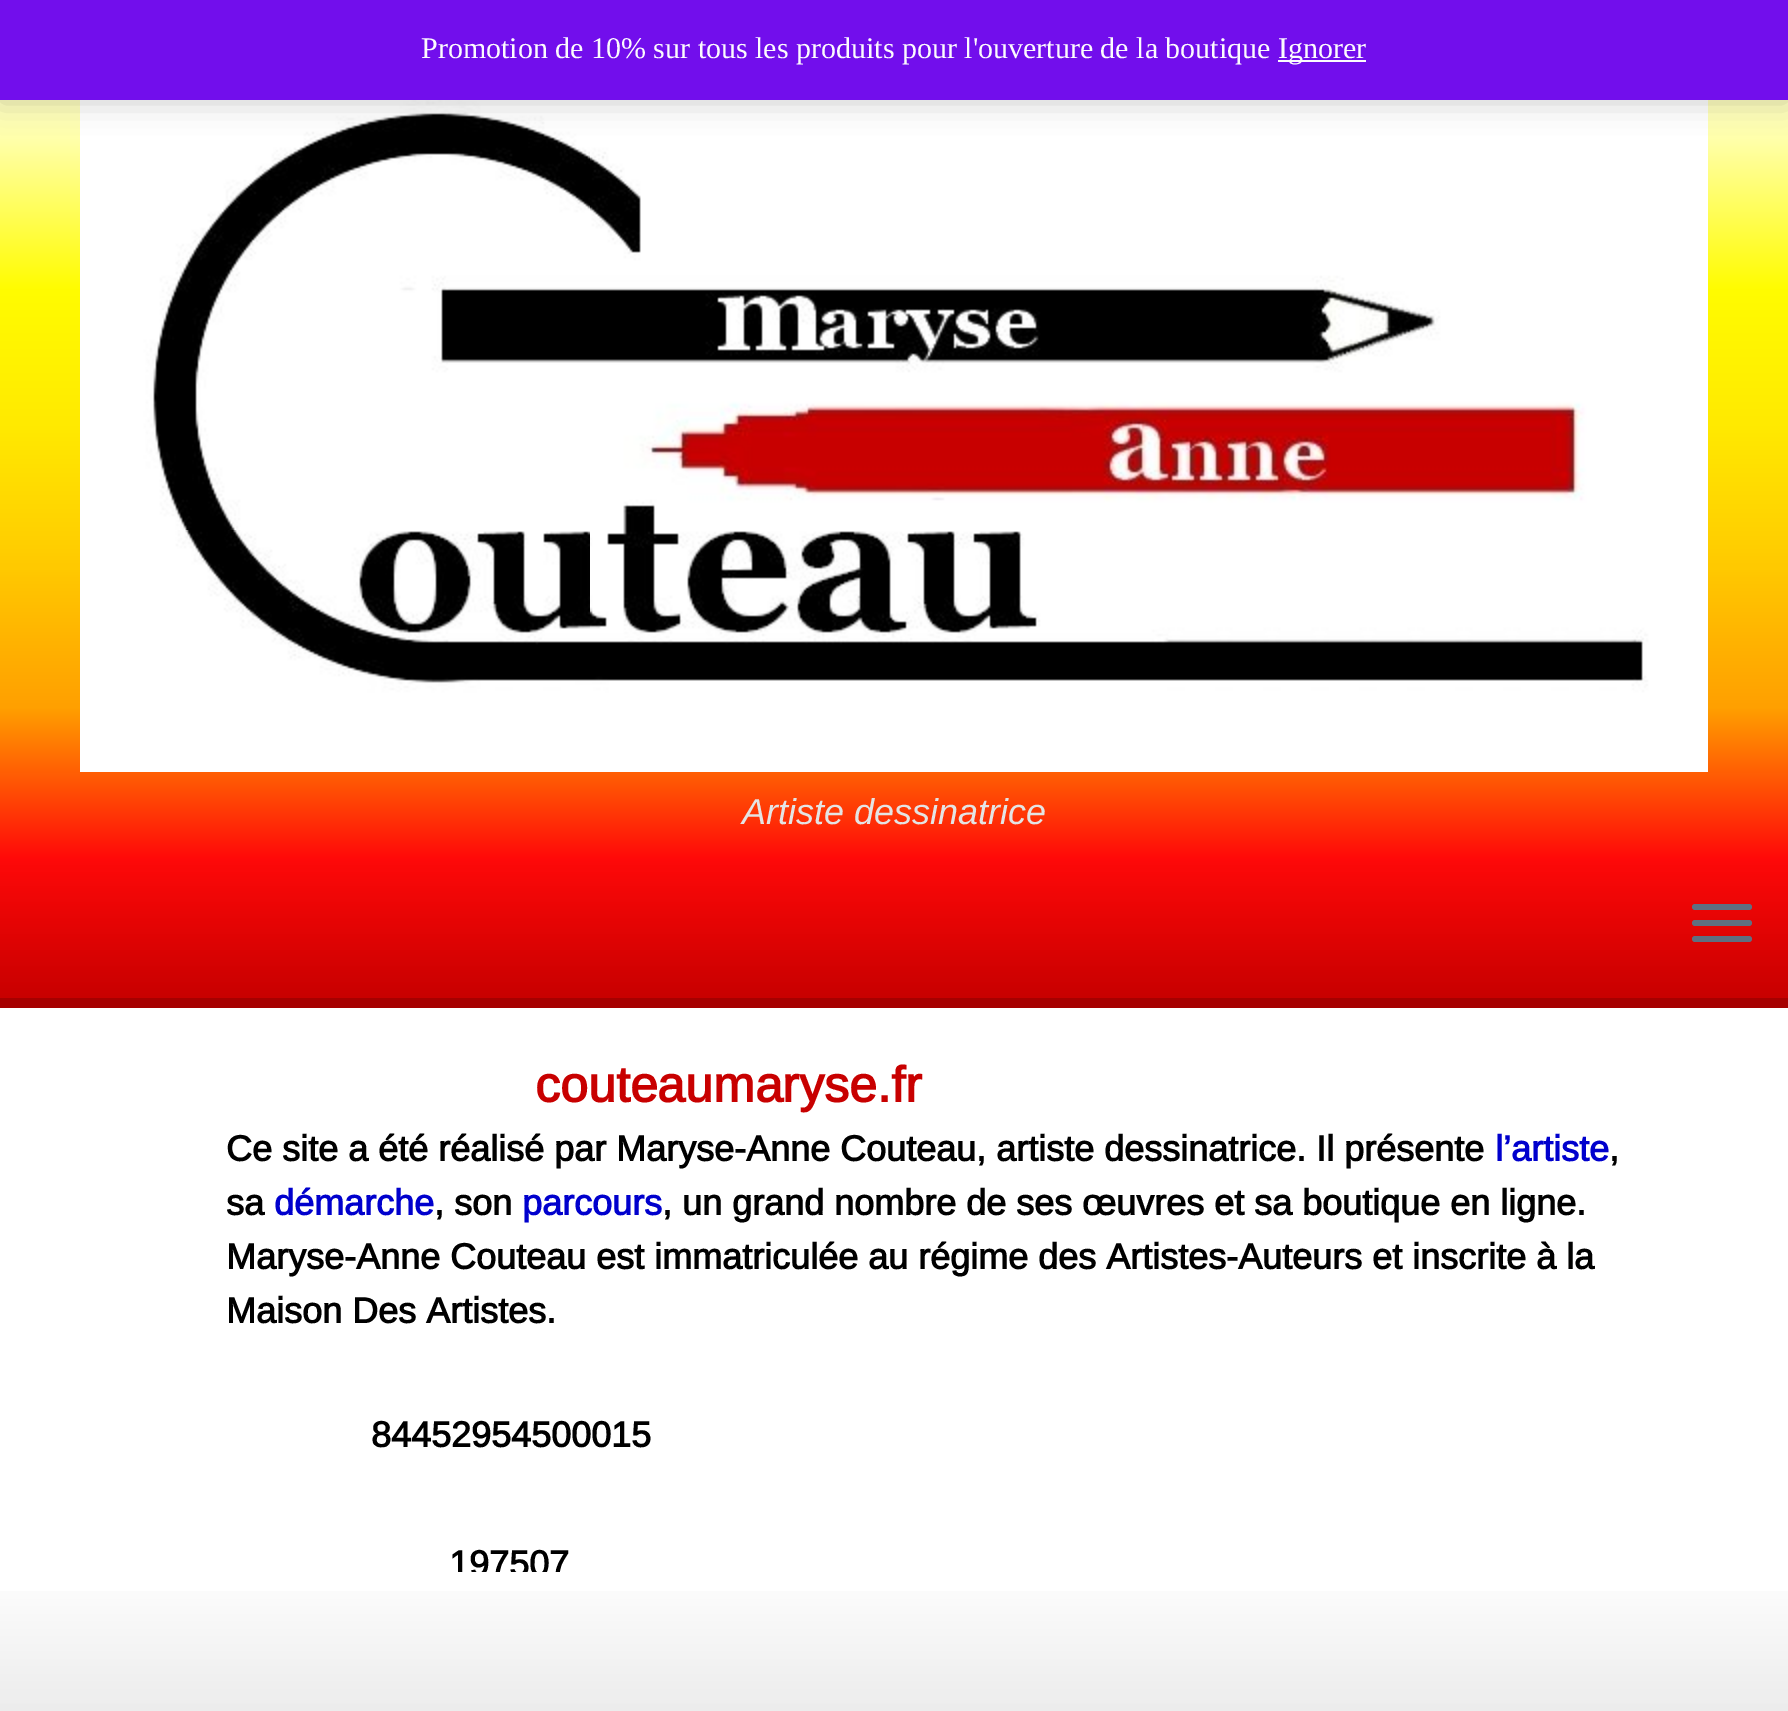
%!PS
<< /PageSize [1788 1711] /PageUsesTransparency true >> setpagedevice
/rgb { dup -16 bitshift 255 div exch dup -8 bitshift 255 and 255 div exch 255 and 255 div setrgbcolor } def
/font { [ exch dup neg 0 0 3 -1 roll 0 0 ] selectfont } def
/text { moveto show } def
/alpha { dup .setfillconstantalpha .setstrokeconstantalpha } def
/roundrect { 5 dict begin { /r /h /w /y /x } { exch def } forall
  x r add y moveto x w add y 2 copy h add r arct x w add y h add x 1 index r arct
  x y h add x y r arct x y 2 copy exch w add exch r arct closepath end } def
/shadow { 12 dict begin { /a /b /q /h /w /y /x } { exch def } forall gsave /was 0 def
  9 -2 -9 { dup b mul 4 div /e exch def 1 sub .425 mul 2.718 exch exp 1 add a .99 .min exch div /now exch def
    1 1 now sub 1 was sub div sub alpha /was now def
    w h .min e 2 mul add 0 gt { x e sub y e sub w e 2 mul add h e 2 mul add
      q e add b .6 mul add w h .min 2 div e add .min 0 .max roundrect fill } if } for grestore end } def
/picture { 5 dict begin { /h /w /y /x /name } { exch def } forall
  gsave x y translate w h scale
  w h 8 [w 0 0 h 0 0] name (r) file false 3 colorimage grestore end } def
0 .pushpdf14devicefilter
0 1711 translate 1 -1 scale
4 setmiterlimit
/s1 { /LiberationSerif-Regular 30 font 16#FCFBFE rgb } def
/s2 { /LiberationSans-Italic 36 font 16#E4E4E4 rgb } def
/s3 { /Arimo-Bold 50 font 16#C80000 rgb } def
/s4 { /Arimo-Bold 36 font 16#000000 rgb } def
/s5 { /Arimo-Bold 36 font 16#0000CD rgb } def
16#FFFFFF rgb
0 0 1788 1711 rectfill
gsave 0 100 moveto 1788 100 lineto 1788 998 lineto 0 998 lineto closepath clip newpath
<< /ShadingType 2 /ColorSpace /DeviceRGB /Coords [894 0 894 998] /Extend [true true] /Function << /FunctionType 3 /Domain [0 1] /Functions [<< /FunctionType 2 /Domain [0 1] /C0 [1 1 1] /C1 [1 1 0.667] /N 1 >> << /FunctionType 2 /Domain [0 1] /C0 [1 1 0.667] /C1 [1 0.988 0] /N 1 >> << /FunctionType 2 /Domain [0 1] /C0 [1 0.988 0] /C1 [1 0.914 0] /N 1 >> << /FunctionType 2 /Domain [0 1] /C0 [1 0.914 0] /C1 [1 0.788 0] /N 1 >> << /FunctionType 2 /Domain [0 1] /C0 [1 0.788 0] /C1 [1 0.624 0] /N 1 >> << /FunctionType 2 /Domain [0 1] /C0 [1 0.624 0] /C1 [1 0.035 0.035] /N 1 >> << /FunctionType 2 /Domain [0 1] /C0 [1 0.035 0.035] /C1 [0.784 0 0] /N 1 >>] /Bounds [0.14 0.29 0.43 0.57 0.71 0.86] /Encode [0 1 0 1 0 1 0 1 0 1 0 1 0 1] >> >> shfill grestore
(pic1.raw) 80 100 1628 672 picture
16#000000 rgb
0 2 1788 100 0 15 0.2 shadow
16#720EEC rgb
0 0 1788 100 rectfill
s1
(Promotion de 10% sur tous les produits pour l'ouverture de la boutique) 421 58 text
1278 60 88 2 rectfill
(Ignorer) 1278 58 text
16#A60000 rgb
0 998 1788 10 rectfill
s2
(Artiste dessinatrice) 742 824 text
16#5F6F81 rgb
1692 904 60 6 3 roundrect fill
1692 920 60 6 3 roundrect fill
1692 936 60 6 3 roundrect fill
s3
(couteaumaryse.fr) 535 1102 text
s4
(Ce site a été réalisé par Maryse-Anne Couteau, artiste dessinatrice. Il présente) 226 1161 text
s5
(l’artiste) 1495 1161 text
s4
(,) 1609 1161 text
(sa) 226 1215 text
s5
(démarche) 274 1215 text
s4
(, son) 434 1215 text
s5
(parcours) 522 1215 text
s4
(, un grand nombre de ses œuvres et sa boutique en ligne.) 662 1215 text
(Maryse-Anne Couteau est immatriculée au régime des Artistes-Auteurs et inscrite à la) 226 1269 text
(Maison Des Artistes.) 226 1323 text
(84452954500015) 371 1447 text
gsave
186 1008 1494 564 rectclip
(197507) 449 1576 text
grestore
gsave 0 1591 moveto 1788 1591 lineto 1788 1711 lineto 0 1711 lineto closepath clip newpath
<< /ShadingType 2 /ColorSpace /DeviceRGB /Coords [894 1572 894 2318] /Extend [true true] /Function << /FunctionType 3 /Domain [0 1] /Functions [<< /FunctionType 2 /Domain [0 1] /C0 [1 1 1] /C1 [0.933 0.933 0.933] /N 1 >> << /FunctionType 2 /Domain [0 1] /C0 [0.933 0.933 0.933] /C1 [0.867 0.867 0.867] /N 1 >> << /FunctionType 2 /Domain [0 1] /C0 [0.867 0.867 0.867] /C1 [0.8 0.8 0.8] /N 1 >> << /FunctionType 2 /Domain [0 1] /C0 [0.8 0.8 0.8] /C1 [0.733 0.733 0.733] /N 1 >> << /FunctionType 2 /Domain [0 1] /C0 [0.733 0.733 0.733] /C1 [0.667 0.667 0.667] /N 1 >> << /FunctionType 2 /Domain [0 1] /C0 [0.667 0.667 0.667] /C1 [0 0 0] /N 1 >>] /Bounds [0.17 0.33 0.5 0.67 0.83] /Encode [0 1 0 1 0 1 0 1 0 1 0 1] >> >> shfill grestore
.poppdf14devicefilter showpage
